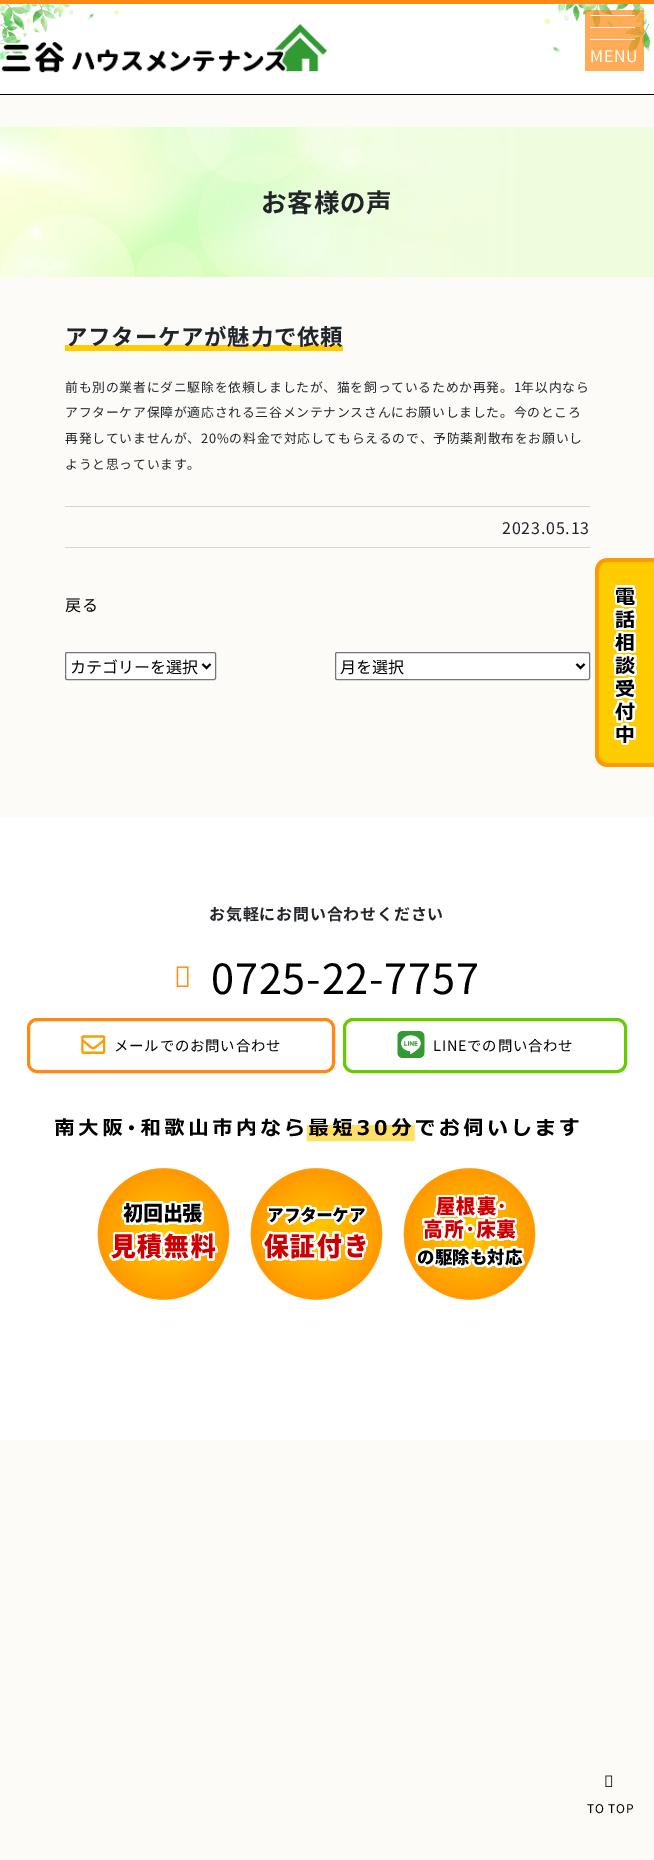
%!PS
<< /PageSize [654 1860] /PageUsesTransparency true >> setpagedevice
/rgb { dup -16 bitshift 255 div exch dup -8 bitshift 255 and 255 div exch 255 and 255 div setrgbcolor } def
/font { [ exch dup neg 0 0 3 -1 roll 0 0 ] selectfont } def
/text { moveto show } def
/alpha { dup .setfillconstantalpha .setstrokeconstantalpha } def
/roundrect { 5 dict begin { /r /h /w /y /x } { exch def } forall
  x r add y moveto x w add y 2 copy h add r arct x w add y h add x 1 index r arct
  x y h add x y r arct x y 2 copy exch w add exch r arct closepath end } def
/picture { 5 dict begin { /h /w /y /x /name } { exch def } forall
  gsave x y translate w h scale
  w h 8 [w 0 0 h 0 0] name (r) file false 3 colorimage grestore end } def
0 .pushpdf14devicefilter
0 1860 translate 1 -1 scale
4 setmiterlimit
/s1 { /NotoSansJP-Regular 16 font 16#000000 rgb } def
16#FCFBF8 rgb
0 0 654 1860 rectfill
16#FFFFFF rgb
0 4 654 90 rectfill
16#FF8913 rgb
0 0 654 4 rectfill
(pic1.raw) 0 4 120 56 picture
(pic2.raw) 543 4 107 52 picture
(pic3.raw) 1 24 326 49 picture
16#000000 rgb
0 94 654 1 rectfill
0.7 alpha
16#FF8913 rgb
585 10 59 61 rectfill
1 alpha
16#FCFBF8 rgb
590 15 45 1 rectfill
590 27 45 1 rectfill
590 39 45 1 rectfill
/NotoSansJP-Regular 16 font
590 62 moveto 0.8 0 (MENU) ashow
(pic4.raw) 0 127 654 150 picture
/NotoSansJP-Bold 25.5 font
16#212529 rgb
261 212 moveto 0.8 0 (お客様の声) ashow
gsave 65 344 moveto 343 344 lineto 343 351 lineto 65 351 lineto closepath clip newpath
<< /ShadingType 2 /ColorSpace /DeviceRGB /Coords [204 351 204 319] /Extend [true true] /Function << /FunctionType 3 /Domain [0 1] /Functions [<< /FunctionType 2 /Domain [0 1] /C0 [1 0.8 0] /C1 [1 0.8 0] /N 1 >> << /FunctionType 2 /Domain [0 1] /C0 [0.988 0.984 0.973] /C1 [0.988 0.984 0.973] /N 1 >>] /Bounds [0.21] /Encode [0 1 0 1] >> >> shfill grestore
/NotoSansJP-Bold 22.4 font
65 345 moveto 0.8 0 (アフターケアが魅力で依頼) ashow
/NotoSansJP-Regular 12.8 font
65 392 moveto 0.8 0 (前も別の業者にダニ駆除を依頼しましたが、猫を飼っているためか再発。1年以内なら) ashow
65 417 moveto 0.8 0 (アフターケア保障が適応される三谷メンテナンスさんにお願いしました。今のところ) ashow
65 443 moveto 0.8 0 (再発していませんが、20%の料金で対応してもらえるので、予防薬剤散布をお願いし) ashow
65 469 moveto 0.8 0 (ようと思っています。) ashow
16#D4D4D2 rgb
65 506 525 1 rectfill
65 547 525 1 rectfill
/NotoSansJP-Regular 16 font
16#212529 rgb
502 534 moveto 0.8 0 (2023.05.13) ashow
16#000000 rgb
65 611 moveto 0.8 0 (戻る) ashow
16#FFFFFF rgb
65.5 652.5 150 27 1.5 roundrect gsave fill grestore
16#767676 rgb
stroke
16#000000 rgb
2 setlinewidth
202.5 664 moveto 206.5 668 lineto 210.5 664 lineto stroke
(カテゴリーを選択) 70 673 text
16#FFFFFF rgb
335.5 652.5 254 27 1.5 roundrect gsave fill grestore
16#767676 rgb
1 setlinewidth
stroke
16#000000 rgb
2 setlinewidth
576.5 664 moveto 580.5 668 lineto 584.5 664 lineto stroke
(月を選択) 340 673 text
(pic5.raw) 595 558 59 209 picture
16#FFFFFF rgb
0 817 654 623 rectfill
/NotoSansJP-Bold 16 font
16#212529 rgb
209 920 moveto 0.8 0 (お気軽にお問い合わせください) ashow
(pic6.raw) 176 966 13 21 picture
/NotoSansJP-Regular 41.5 font
16#000000 rgb
211 994 moveto 0.8 0 (0725-22-7757) ashow
16#FF8913 rgb
3 setlinewidth
28.5 1019.5 305 52 8.5 roundrect stroke
(pic7.raw) 81 1035 25 19 picture
/NotoSansJP-Regular 14.4 font
16#000000 rgb
114 1051 moveto 0.8 0 (メールでのお問い合わせ) ashow
16#66CC00 rgb
344.5 1019.5 281 52 8.5 roundrect stroke
(pic8.raw) 397 1031 28 27 picture
16#000000 rgb
433 1051 moveto 0.8 0 (LINEでの問い合わせ) ashow
(pic9.raw) 55 1118 524 182 picture
(pic10.raw) 605 1775 8 12 picture
/NotoSansJP-Regular 12 font
587 1813 moveto 0.8 0 (TO TOP) ashow
.poppdf14devicefilter showpage
